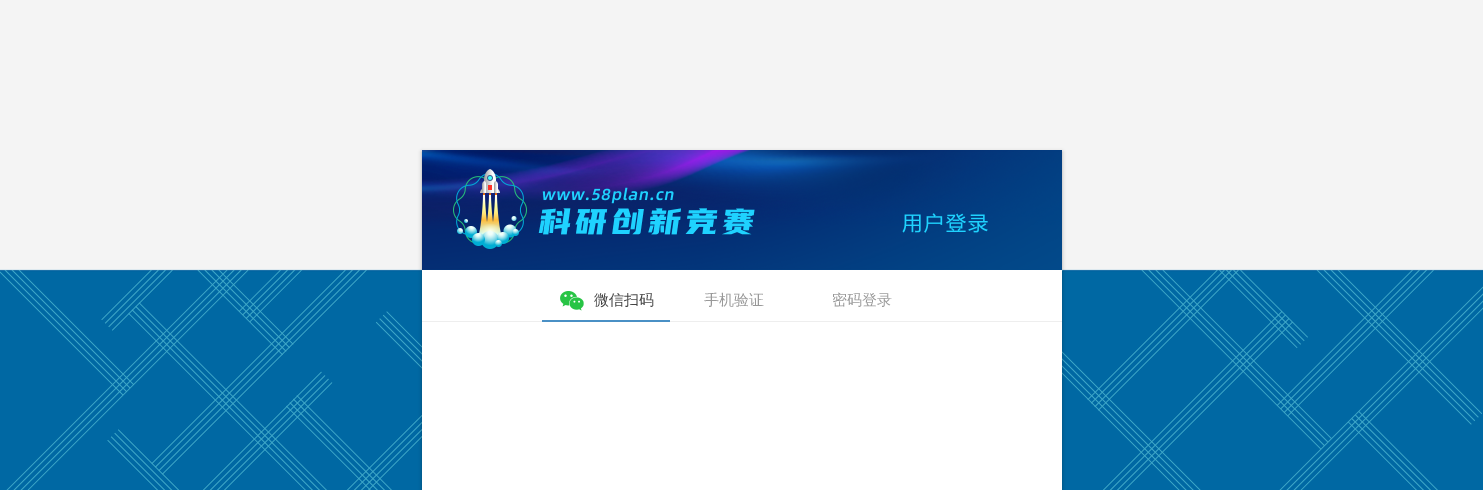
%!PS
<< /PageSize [1483 490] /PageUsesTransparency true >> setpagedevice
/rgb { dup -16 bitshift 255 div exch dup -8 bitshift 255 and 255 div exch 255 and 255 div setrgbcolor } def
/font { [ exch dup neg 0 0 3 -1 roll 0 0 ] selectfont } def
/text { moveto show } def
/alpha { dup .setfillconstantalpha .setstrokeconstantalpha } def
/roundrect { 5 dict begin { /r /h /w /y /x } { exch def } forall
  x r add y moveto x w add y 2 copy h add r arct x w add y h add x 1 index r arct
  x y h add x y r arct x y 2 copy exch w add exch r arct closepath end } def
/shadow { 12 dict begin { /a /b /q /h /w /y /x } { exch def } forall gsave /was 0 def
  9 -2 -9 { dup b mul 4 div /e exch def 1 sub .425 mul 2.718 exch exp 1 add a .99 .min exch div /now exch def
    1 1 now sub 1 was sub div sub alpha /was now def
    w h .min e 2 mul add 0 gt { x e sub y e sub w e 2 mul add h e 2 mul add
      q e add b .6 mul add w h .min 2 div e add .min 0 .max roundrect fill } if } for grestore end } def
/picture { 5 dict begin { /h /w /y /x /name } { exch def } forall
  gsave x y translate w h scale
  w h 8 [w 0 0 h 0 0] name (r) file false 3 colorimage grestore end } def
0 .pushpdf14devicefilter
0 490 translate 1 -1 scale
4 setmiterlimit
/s1 { /WenQuanYiZenHei-Medium 15 font 16#444444 rgb } def
/s2 { /WenQuanYiZenHei-Medium 15 font 16#999999 rgb } def
16#F4F4F4 rgb
0 0 1483 490 rectfill
(pic1.raw) 0 269 1483 221 picture
(pic2.raw) 422 150 640 340 picture
gsave
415 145 moveto 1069 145 lineto 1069 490 lineto 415 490 lineto closepath 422 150 moveto 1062 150 lineto 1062 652 lineto 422 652 lineto closepath eoclip newpath
16#000000 rgb
422 152 640 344 0 2 0.3 shadow
grestore
16#EEEEEE rgb
422 321 640 1 rectfill
16#4A90C5 rgb
542 320 128 2 rectfill
(pic3.raw) 560 291 24 20 picture
s1
(微信扫码) 594 305 text
s2
(手机验证) 704 305 text
(密码登录) 832 305 text
.poppdf14devicefilter showpage
